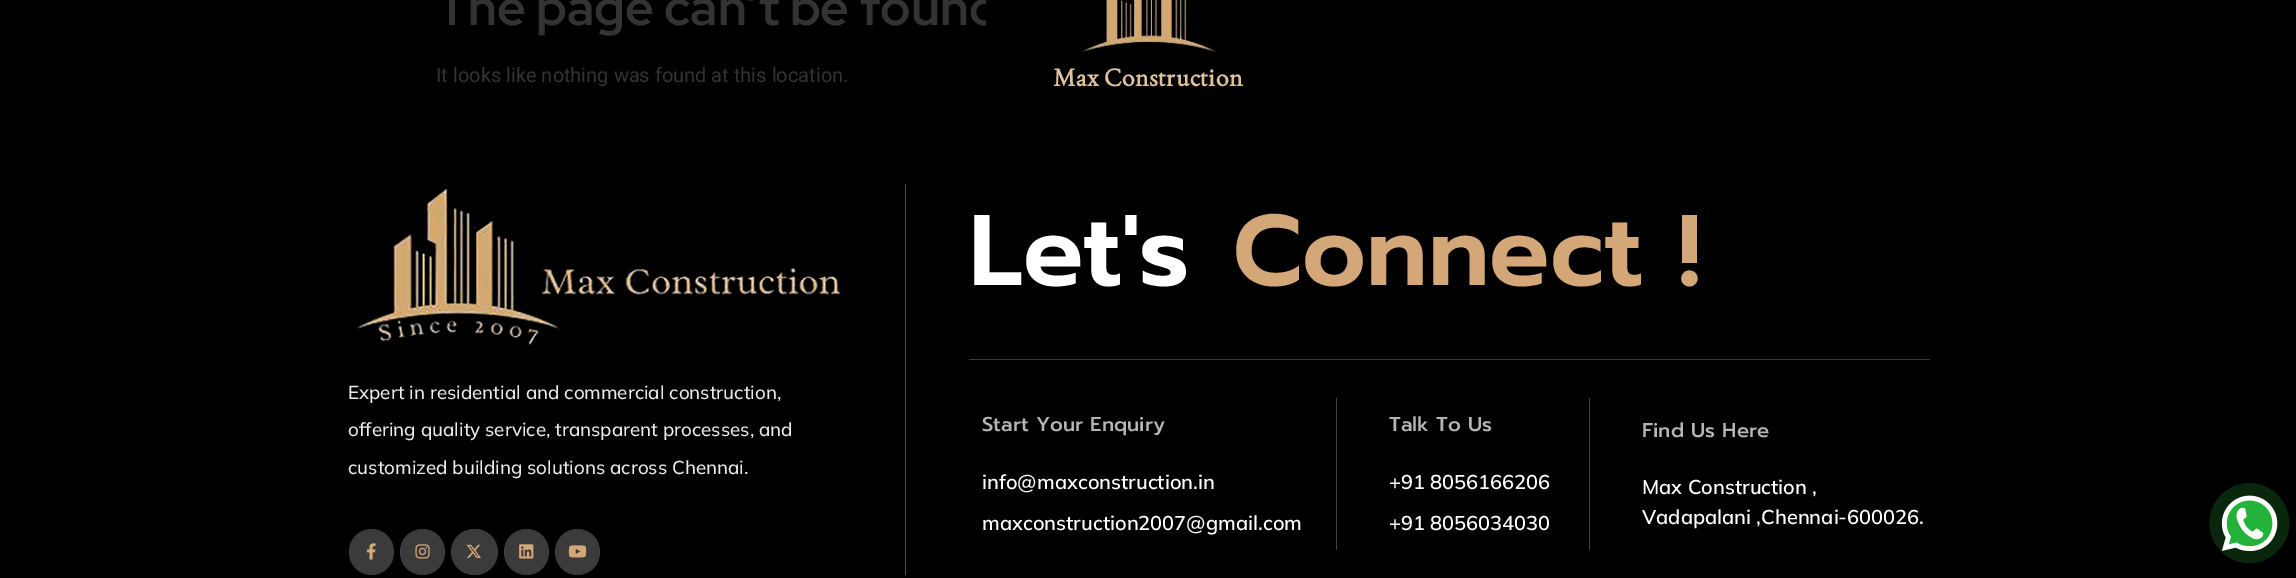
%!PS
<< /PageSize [2296 578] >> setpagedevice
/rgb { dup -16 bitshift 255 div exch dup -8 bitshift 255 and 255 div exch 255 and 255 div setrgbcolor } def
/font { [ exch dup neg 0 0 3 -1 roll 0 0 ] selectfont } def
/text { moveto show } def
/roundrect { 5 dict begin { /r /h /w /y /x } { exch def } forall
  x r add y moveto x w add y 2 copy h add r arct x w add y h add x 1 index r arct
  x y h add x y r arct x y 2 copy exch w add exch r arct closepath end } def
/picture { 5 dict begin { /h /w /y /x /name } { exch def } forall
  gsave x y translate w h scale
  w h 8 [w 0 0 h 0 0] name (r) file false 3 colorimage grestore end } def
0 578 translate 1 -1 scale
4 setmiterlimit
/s1 { /RedHatDisplay-Bold 50 font 16#333333 rgb } def
/s2 { /Roboto-Regular 20 font 16#333333 rgb } def
/s3 { /Mulish-Medium 18.75 font 16#EBEBEB rgb } def
/s4 { /Prompt-SemiBold 100 font 16#FFFFFF rgb } def
/s5 { /Prompt-SemiBold 100 font 16#D3A777 rgb } def
/s6 { /Prompt-Medium 20 font 16#B5B5B5 rgb } def
/s7 { /Mulish-SemiBold 20 font 16#FFFFFF rgb } def
16#000000 rgb
0 0 2296 578 rectfill
s1
(The page can’t be found) 436 25 text
s2
(It looks like nothing was found at this location.) 436 82 text
16#000000 rgb
986 -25 moveto 1311 -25 lineto 1311 88 lineto 1311 102 1300 113 1286 113 curveto 1011 113 lineto 997 113 986 102 986 88 curveto closepath fill
(pic1.raw) 1082 0 134 52 picture
/Joan-Bold 23.75 font
16#DDC29D rgb
1053 86 moveto 0.5 0 (Max Construction) ashow
16#525252 rgb
905 184 1 391 rectfill
(pic2.raw) 356 188 485 157 picture
s3
(Expert in residential and commercial construction,) 348 399 text
(offering quality service, transparent processes, and) 348 436 text
(customized building solutions across Chennai.) 348 474 text
16#3B3B3B rgb
349 529 45 46 22.5 roundrect fill
(pic3.raw) 366 543 10 17 picture
400 529 45 46 22.5 roundrect fill
(pic4.raw) 415 544 15 15 picture
451 529 47 46 23 roundrect fill
(pic5.raw) 466 544 15 14 picture
504 529 45 46 22.5 roundrect fill
(pic6.raw) 519 544 15 15 picture
555 529 45 46 22.5 roundrect fill
(pic7.raw) 568 545 19 13 picture
16#383838 rgb
969 359 961 1 rectfill
s4
(Let's) 969 285 text
s5
(Connect !) 1233 285 text
16#404040 rgb
1336 398 1 152 rectfill
s6
(Start Your Enquiry) 982 431 text
s7
(info@maxconstruction.in) 982 489 text
(maxconstruction2007@gmail.com) 982 530 text
16#404040 rgb
1589 398 1 152 rectfill
s6
(Talk To Us) 1389 431 text
s7
(+91 8056166206) 1389 489 text
(+91 8056034030) 1389 530 text
s6
(Find Us Here) 1642 437 text
s7
(Max Construction ,) 1642 494 text
(Vadapalani ,Chennai-600026.) 1642 524 text
(pic8.raw) 2209 483 81 81 picture
showpage
